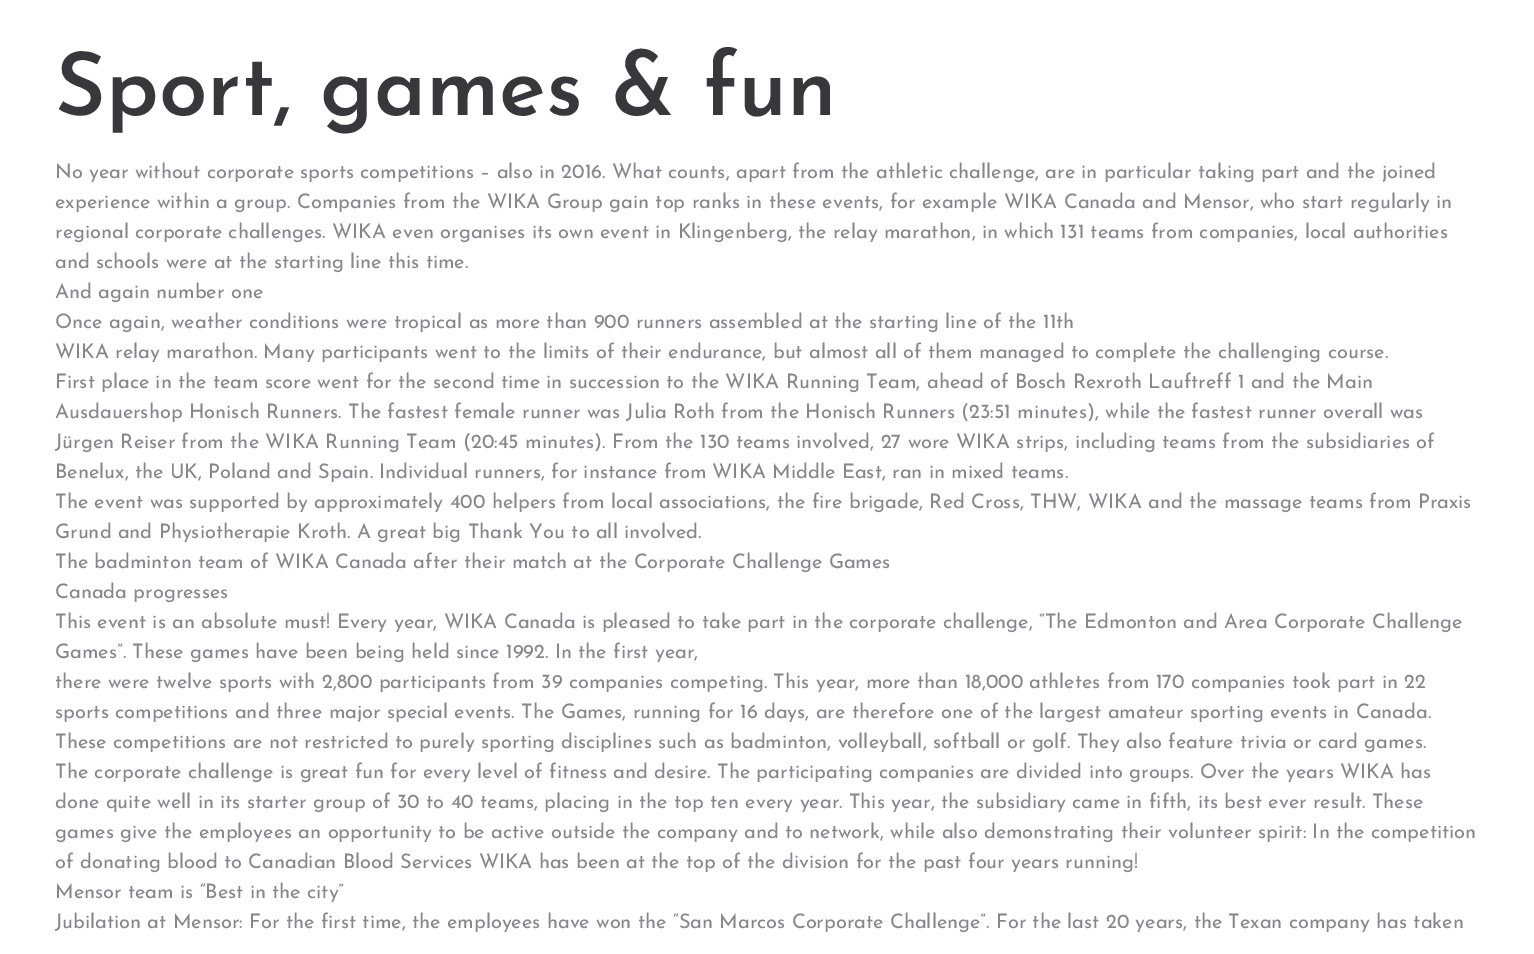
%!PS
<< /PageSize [1534 954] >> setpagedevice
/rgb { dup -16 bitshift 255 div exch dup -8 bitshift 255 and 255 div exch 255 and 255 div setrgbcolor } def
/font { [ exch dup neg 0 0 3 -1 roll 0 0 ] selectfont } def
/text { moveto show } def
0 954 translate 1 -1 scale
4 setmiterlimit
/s1 { /JosefinSans-SemiBold 87.5 font 16#38373C rgb } def
/s2 { /JosefinSans-Regular 20 font 16#87868A rgb } def
16#FFFFFF rgb
0 0 1534 954 rectfill
s1
(Sport, games & fun) 55 115 text
s2
(No year without corporate sports competitions – also in 2016. What counts, apart from the athletic challenge, are in particular taking part and the joined) 55 178 text
(experience within a group. Companies from the WIKA Group gain top ranks in these events, for example WIKA Canada and Mensor, who start regularly in) 55 208 text
(regional corporate challenges. WIKA even organises its own event in Klingenberg, the relay marathon, in which 131 teams from companies, local authorities) 55 238 text
(and schools were at the starting line this time.) 55 268 text
(And again number one) 55 298 text
(Once again, weather conditions were tropical as more than 900 runners assembled at the starting line of the 11th) 55 328 text
(WIKA relay marathon. Many participants went to the limits of their endurance, but almost all of them managed to complete the challenging course.) 55 358 text
(First place in the team score went for the second time in succession to the WIKA Running Team, ahead of Bosch Rexroth Lauftreff 1 and the Main) 55 388 text
(Ausdauershop Honisch Runners. The fastest female runner was Julia Roth from the Honisch Runners \(23:51 minutes\), while the fastest runner overall was) 55 418 text
(Jürgen Reiser from the WIKA Running Team \(20:45 minutes\). From the 130 teams involved, 27 wore WIKA strips, including teams from the subsidiaries of) 55 448 text
(Benelux, the UK, Poland and Spain. Individual runners, for instance from WIKA Middle East, ran in mixed teams.) 55 478 text
(The event was supported by approximately 400 helpers from local associations, the fire brigade, Red Cross, THW, WIKA and the massage teams from Praxis) 55 508 text
(Grund and Physiotherapie Kroth. A great big Thank You to all involved.) 55 538 text
(The badminton team of WIKA Canada after their match at the Corporate Challenge Games) 55 568 text
(Canada progresses) 55 598 text
(This event is an absolute must! Every year, WIKA Canada is pleased to take part in the corporate challenge, “The Edmonton and Area Corporate Challenge) 55 628 text
(Games”. These games have been being held since 1992. In the first year,) 55 658 text
(there were twelve sports with 2,800 participants from 39 companies competing. This year, more than 18,000 athletes from 170 companies took part in 22) 55 688 text
(sports competitions and three major special events. The Games, running for 16 days, are therefore one of the largest amateur sporting events in Canada.) 55 718 text
(These competitions are not restricted to purely sporting disciplines such as badminton, volleyball, softball or golf. They also feature trivia or card games.) 55 748 text
(The corporate challenge is great fun for every level of fitness and desire. The participating companies are divided into groups. Over the years WIKA has) 55 778 text
(done quite well in its starter group of 30 to 40 teams, placing in the top ten every year. This year, the subsidiary came in fifth, its best ever result. These) 55 808 text
(games give the employees an opportunity to be active outside the company and to network, while also demonstrating their volunteer spirit: In the competition) 55 838 text
(of donating blood to Canadian Blood Services WIKA has been at the top of the division for the past four years running!) 55 868 text
(Mensor team is “Best in the city”) 55 898 text
(Jubilation at Mensor: For the first time, the employees have won the “San Marcos Corporate Challenge”. For the last 20 years, the Texan company has taken) 55 928 text
showpage
